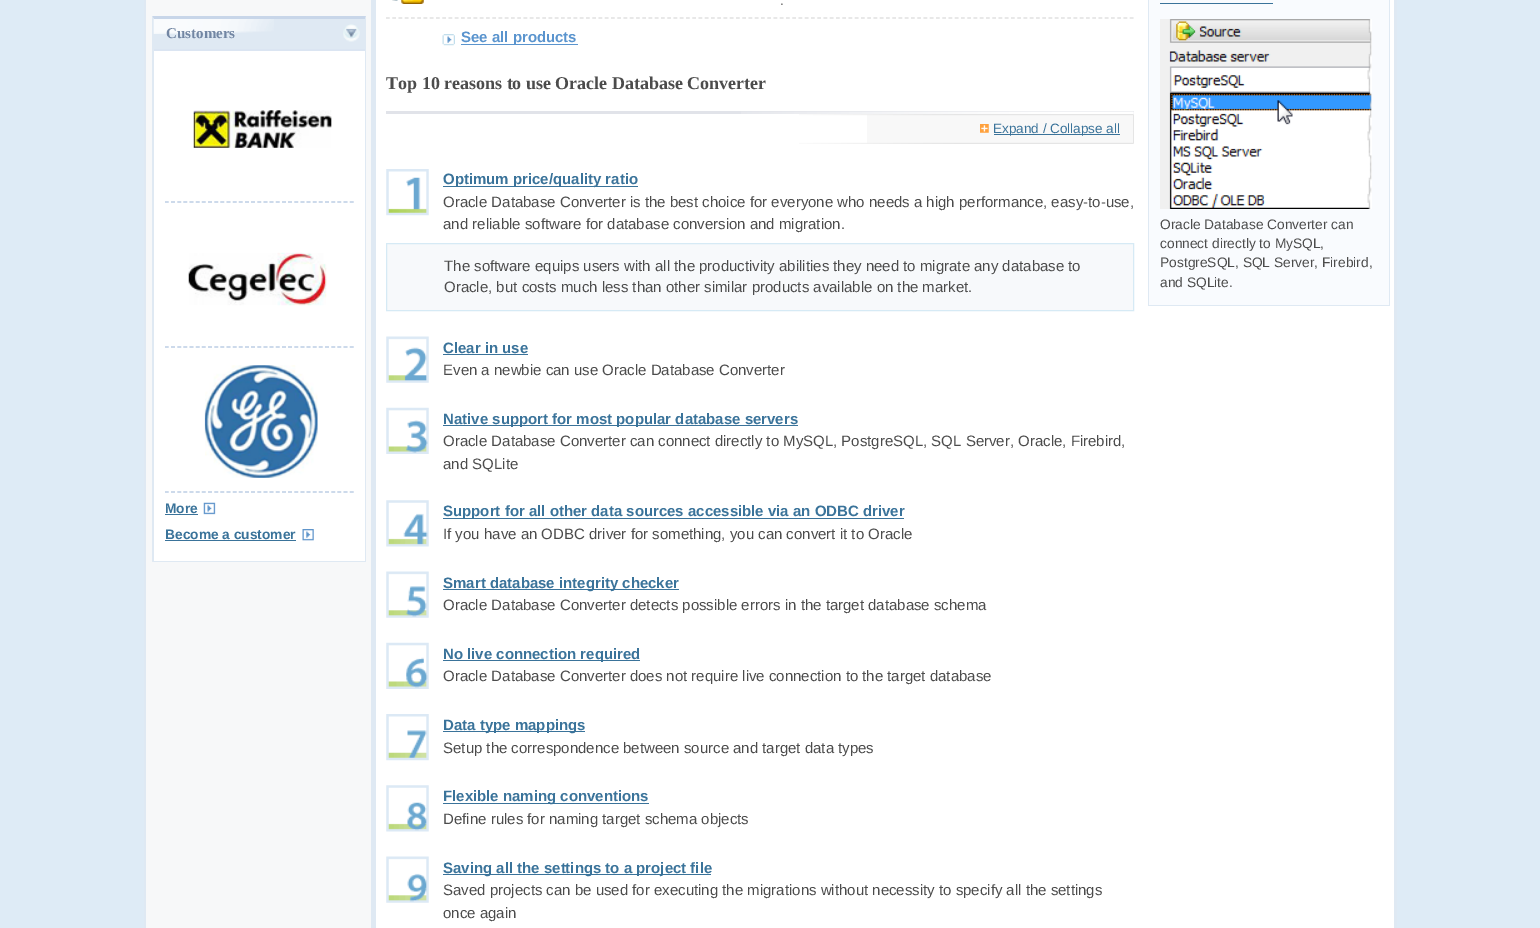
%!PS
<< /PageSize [1540 928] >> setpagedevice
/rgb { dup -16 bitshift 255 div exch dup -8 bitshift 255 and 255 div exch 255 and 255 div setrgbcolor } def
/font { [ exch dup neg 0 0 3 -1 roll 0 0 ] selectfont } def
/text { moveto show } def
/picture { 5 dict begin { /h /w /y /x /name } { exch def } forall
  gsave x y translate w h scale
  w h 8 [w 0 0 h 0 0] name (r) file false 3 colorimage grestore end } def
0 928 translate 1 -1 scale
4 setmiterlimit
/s1 { /LiberationSerif-Bold 15 font 16#7286A3 rgb } def
/s2 { /LiberationSans-Bold 13.75 font 16#3A739A rgb } def
/s3 { /LiberationSans-Regular 13.75 font 16#5C5C5C rgb } def
/s4 { /LiberationSans-Bold 15 font 16#5A94CE rgb } def
/s5 { /LiberationSerif-Bold 18 font 16#4C4C4C rgb } def
/s6 { /LiberationSans-Regular 13.5 font 16#3A739A rgb } def
/s7 { /LiberationSans-Bold 15 font 16#3A739A rgb } def
/s8 { /LiberationSans-Regular 15 font 16#4C4C4C rgb } def
/s9 { /LiberationSans-Regular 13.75 font 16#4C4C4C rgb } def
16#DEEBF6 rgb
0 0 1540 928 rectfill
16#FFFFFF rgb
376 0 1018 928 rectfill
16#DFE9F3 rgb
1394 0 3 928 rectfill
144 0 2 928 rectfill
16#F7F8F9 rgb
146 0 225 928 rectfill
16#DFE9F3 rgb
371 0 5 928 rectfill
16#C8D6E9 rgb
152 16 moveto 366 16 lineto 365 19 lineto 154 19 lineto closepath fill
16#DFE9F3 rgb
366 16 moveto 366 562 lineto 365 561 lineto 365 19 lineto closepath fill
153 561 213 1 rectfill
152 562 moveto 152 16 lineto 154 19 lineto 154 561 lineto closepath fill
154 19 211 30 rectfill
(pic1.raw) 153 19 121 15 picture
16#DBE5F2 rgb
154 49 211 2 rectfill
s1
(Customers) 166 38 text
(pic2.raw) 343 24 17 18 picture
16#FFFFFF rgb
154 51 211 510 rectfill
(pic3.raw) 193 110 139 38 picture
16#BBCDE5 rgb
1.2 setlinewidth
[3.75 2.41] 0 setdash
165 202 moveto 354 202 lineto stroke
(pic4.raw) 188 252 139 54 picture
165 347 moveto 354 347 lineto stroke
(pic5.raw) 204 365 114 113 picture
165 492 moveto 354 492 lineto stroke
s2
(More) 165 513 text
165 514 33 1 rectfill
(pic6.raw) 203 502 13 13 picture
(Become a customer) 165 539 text
165 540 131 1 rectfill
(pic7.raw) 302 529 12 12 picture
(pic8.raw) 392 0 32 4 picture
s3
(.) 780 5 text
16#E0E0E0 rgb
[3.75 2.5] 0 setdash
386 18 moveto 1134 18 lineto stroke
(pic9.raw) 442 34 13 12 picture
16#5A94CE rgb
461 44 117 1 rectfill
s4
(See all products) 461 42 text
s5
(Top 10 reasons to use Oracle Database Converter) 386 89 text
16#E1E3E9 rgb
386 111 748 3 rectfill
(pic10.raw) 741 111 393 3 picture
16#F8F8F8 rgb
867 115 266 28 rectfill
16#E5E5E5 rgb
1133 115 1 28 rectfill
(pic11.raw) 799 114 335 2 picture
(pic12.raw) 980 124 9 9 picture
16#3A739A rgb
994 134 126 1 rectfill
s6
(Expand / Collapse all) 993 133 text
(pic13.raw) 799 142 335 2 picture
(pic14.raw) 386 169 43 47 picture
443 186 195 1 rectfill
s7
(Optimum price/quality ratio) 443 184 text
s8
(Oracle Database Converter is the best choice for everyone who needs a high performance, easy-to-use,) 443 207 text
(and reliable software for database conversion and migration.) 443 229 text
16#F7F9FB rgb
386.5 243.5 moveto 1133.5 243.5 lineto 1133.5 310.5 lineto 386.5 310.5 lineto closepath gsave fill grestore
16#D6EAF5 rgb
1 setlinewidth
[] 0 setdash
stroke
s8
(The software equips users with all the productivity abilities they need to migrate any database to) 444 271 text
(Oracle, but costs much less than other similar products available on the market.) 444 292 text
(pic15.raw) 386 336 43 47 picture
s7
(Clear in use) 443 353 text
443 354 85 1 rectfill
s8
(Even a newbie can use Oracle Database Converter) 443 375 text
(pic16.raw) 386 407 43 47 picture
16#3A739A rgb
443 425 355 1 rectfill
s7
(Native support for most popular database servers) 443 424 text
s8
(Oracle Database Converter can connect directly to MySQL, PostgreSQL, SQL Server, Oracle, Firebird,) 443 446 text
(and SQLite) 443 469 text
(pic17.raw) 386 500 43 47 picture
16#3A739A rgb
443 518 461 1 rectfill
s7
(Support for all other data sources accessible via an ODBC driver) 443 516 text
s8
(If you have an ODBC driver for something, you can convert it to Oracle) 443 539 text
(pic18.raw) 386 571 43 47 picture
16#3A739A rgb
443 589 236 1 rectfill
s7
(Smart database integrity checker) 443 588 text
s8
(Oracle Database Converter detects possible errors in the target database schema) 443 610 text
(pic19.raw) 386 642 43 47 picture
16#3A739A rgb
443 660 197 1 rectfill
s7
(No live connection required) 443 659 text
s8
(Oracle Database Converter does not require live connection to the target database) 443 681 text
(pic20.raw) 386 714 43 47 picture
16#3A739A rgb
443 731 142 1 rectfill
s7
(Data type mappings) 443 730 text
s8
(Setup the correspondence between source and target data types) 443 753 text
(pic21.raw) 386 785 43 47 picture
16#3A739A rgb
443 803 206 1 rectfill
s7
(Flexible naming conventions) 443 801 text
s8
(Define rules for naming target schema objects) 443 824 text
(pic22.raw) 386 856 43 47 picture
16#3A739A rgb
443 874 268 1 rectfill
s7
(Saving all the settings to a project file) 443 873 text
s8
(Saved projects can be used for executing the migrations without necessity to specify all the settings) 443 895 text
(once again) 443 918 text
16#DFE9F3 rgb
1390 -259 moveto 1390 306 lineto 1389 305 lineto 1389 -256 lineto closepath fill
1148 305 242 1 rectfill
1148 306 moveto 1148 -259 lineto 1149 -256 lineto 1149 305 lineto closepath fill
16#F9FBFE rgb
1149 0 240 305 rectfill
16#3A739A rgb
1160 3 113 1 rectfill
(pic23.raw) 1160 19 212 190 picture
s9
(Oracle Database Converter can) 1160 229 text
(connect directly to MySQL,) 1160 248 text
(PostgreSQL, SQL Server, Firebird,) 1160 267 text
(and SQLite.) 1160 287 text
showpage
